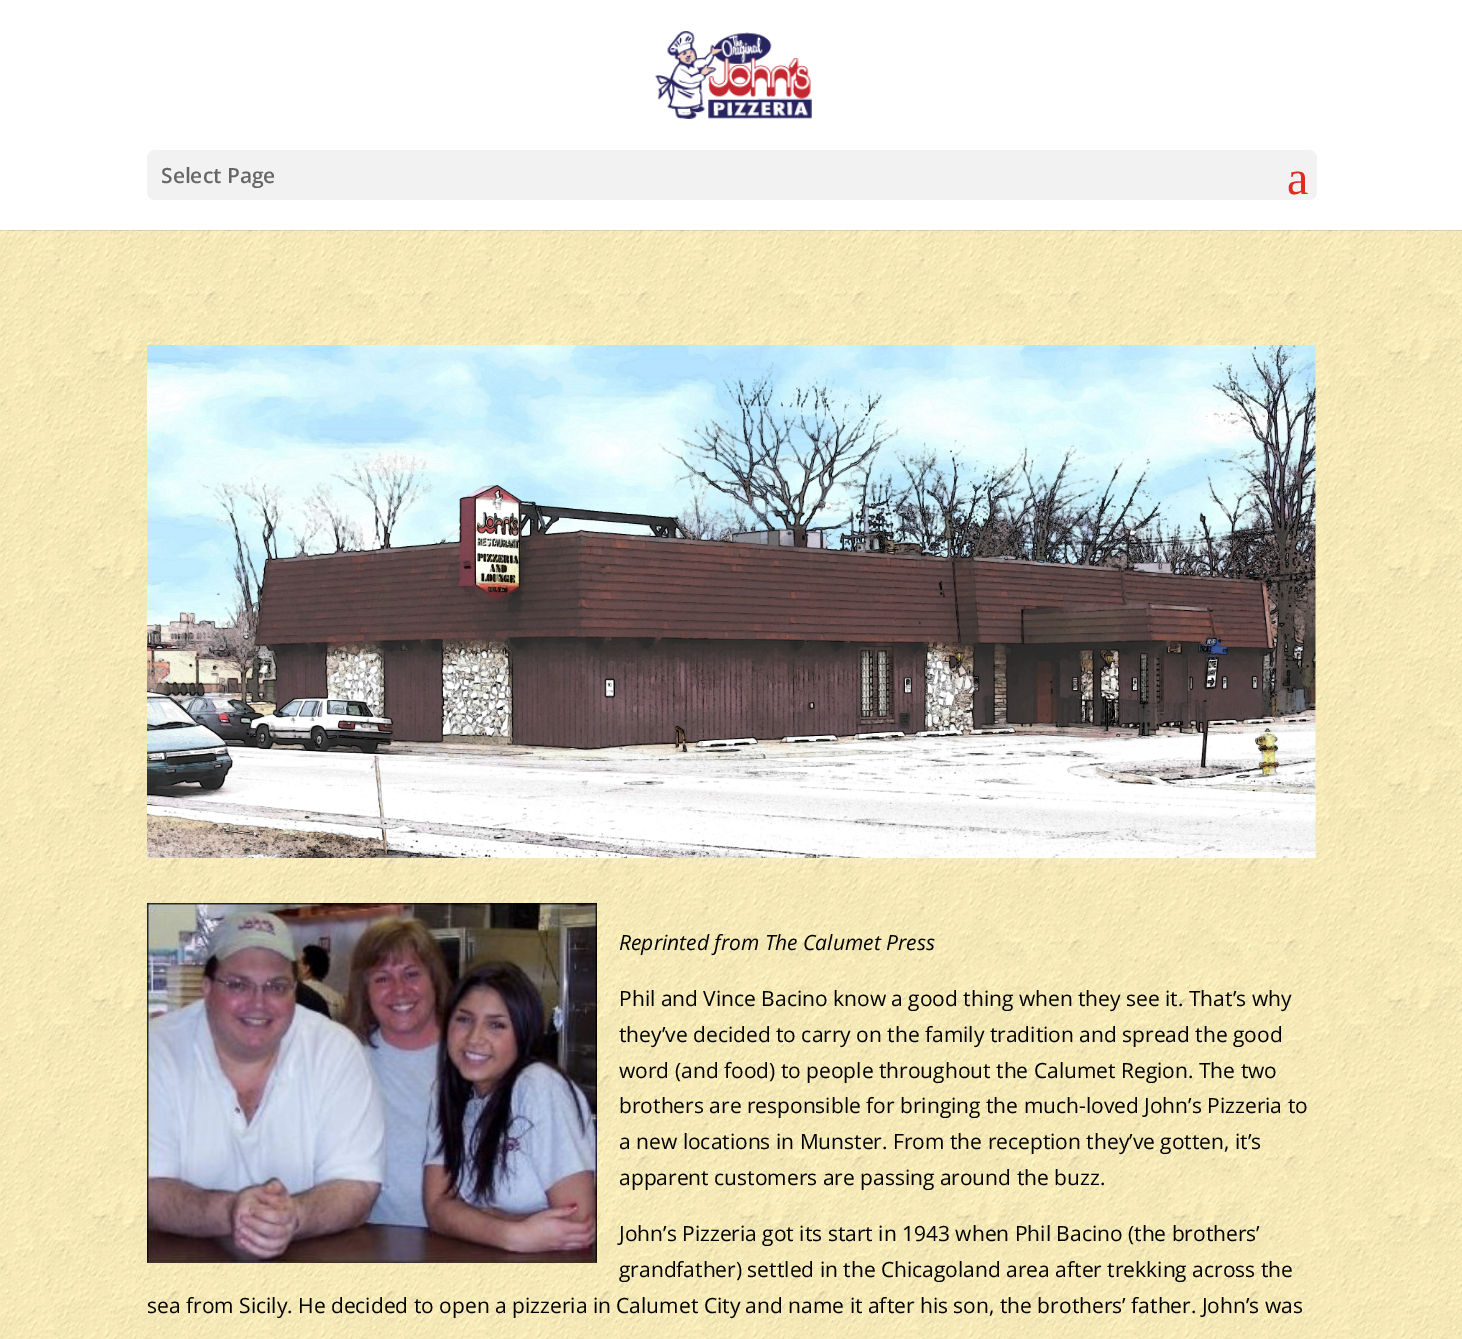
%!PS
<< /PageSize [1462 1339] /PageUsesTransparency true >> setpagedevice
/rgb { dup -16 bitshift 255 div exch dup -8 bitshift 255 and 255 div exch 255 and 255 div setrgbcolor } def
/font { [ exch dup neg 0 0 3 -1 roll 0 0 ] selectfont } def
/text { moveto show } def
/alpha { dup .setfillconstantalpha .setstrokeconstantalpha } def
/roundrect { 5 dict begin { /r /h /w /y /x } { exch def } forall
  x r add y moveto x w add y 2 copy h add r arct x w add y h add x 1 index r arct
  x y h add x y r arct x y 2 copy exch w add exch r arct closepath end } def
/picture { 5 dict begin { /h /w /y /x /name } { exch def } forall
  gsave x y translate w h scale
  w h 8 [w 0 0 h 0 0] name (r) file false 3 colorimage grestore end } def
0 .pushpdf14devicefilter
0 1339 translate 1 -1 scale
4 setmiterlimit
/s1 { /OpenSans-SemiBold 21 font 16#666666 rgb } def
/s2 { /LiberationSerif-Regular 48 font 16#E02B20 rgb } def
/s3 { /OpenSans-Italic 21 font 16#000000 rgb } def
/s4 { /OpenSans-Regular 21 font 16#000000 rgb } def
16#FFFFFF rgb
0 0 1462 1339 rectfill
(pic2.raw) 0 230 1462 1109 picture
0.1 alpha
16#000000 rgb
0 230 moveto 0 231 lineto 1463 231 lineto 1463 2 lineto 1462 2 lineto 1462 230 lineto closepath fill
1 alpha
(pic1.raw) 655 31 157 88 picture
16#F2F2F2 rgb
147 150 1170 50 8 roundrect fill
s1
(Select Page) 161 183 text
s2
(a) 1287 194 text
(pic3.raw) 147 345 1169 513 picture
(pic4.raw) 147 903 450 360 picture
s3
(Reprinted from The Calumet Press) 619 950 text
s4
(Phil and Vince Bacino know a good thing when they see it. That’s why) 619 1006 text
(they’ve decided to carry on the family tradition and spread the good) 619 1042 text
(word \(and food\) to people throughout the Calumet Region. The two) 619 1078 text
(brothers are responsible for bringing the much-loved John’s Pizzeria to) 619 1113 text
(a new locations in Munster. From the reception they’ve gotten, it’s) 619 1149 text
(apparent customers are passing around the buzz.) 619 1185 text
(John’s Pizzeria got its start in 1943 when Phil Bacino \(the brothers’) 619 1241 text
(grandfather\) settled in the Chicagoland area after trekking across the) 619 1277 text
(sea from Sicily. He decided to open a pizzeria in Calumet City and name it after his son, the brothers’ father. John’s was) 147 1313 text
.poppdf14devicefilter showpage
